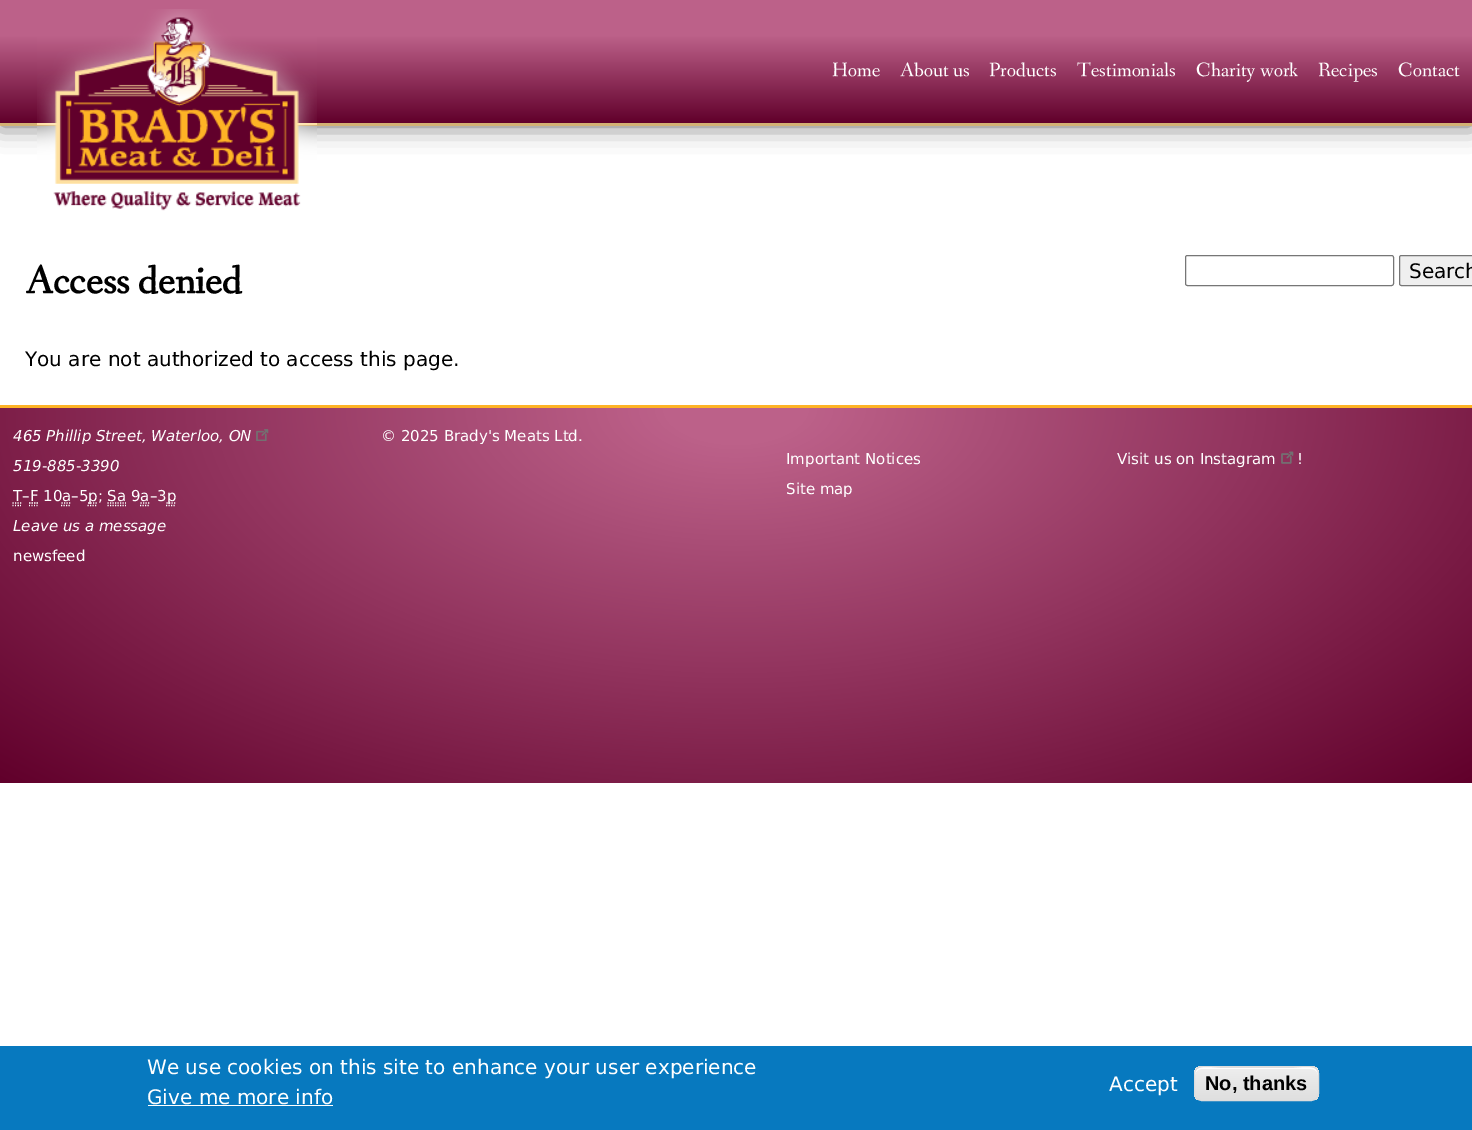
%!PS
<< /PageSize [1472 1130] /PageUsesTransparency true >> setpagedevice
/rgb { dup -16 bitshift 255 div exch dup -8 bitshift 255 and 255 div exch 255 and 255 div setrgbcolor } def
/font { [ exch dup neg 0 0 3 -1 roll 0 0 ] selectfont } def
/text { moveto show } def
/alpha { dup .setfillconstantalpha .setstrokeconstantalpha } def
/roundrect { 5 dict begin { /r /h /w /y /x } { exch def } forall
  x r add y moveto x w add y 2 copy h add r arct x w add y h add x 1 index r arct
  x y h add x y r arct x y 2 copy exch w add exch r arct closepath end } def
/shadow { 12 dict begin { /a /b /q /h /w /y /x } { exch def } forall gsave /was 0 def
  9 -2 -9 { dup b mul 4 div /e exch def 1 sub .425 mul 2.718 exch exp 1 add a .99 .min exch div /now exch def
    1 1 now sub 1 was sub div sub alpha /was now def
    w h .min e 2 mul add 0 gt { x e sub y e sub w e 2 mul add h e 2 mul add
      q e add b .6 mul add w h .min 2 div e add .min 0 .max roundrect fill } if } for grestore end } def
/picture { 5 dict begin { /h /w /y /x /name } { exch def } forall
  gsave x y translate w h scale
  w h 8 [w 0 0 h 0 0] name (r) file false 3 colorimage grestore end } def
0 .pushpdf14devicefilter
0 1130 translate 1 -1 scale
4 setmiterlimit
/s1 { /FanwoodText-Regular 20 font 16#FFFFFF rgb } def
/s2 { /FanwoodText-Bold 40 font 16#000000 rgb } def
/s3 { /DejaVuSans-Regular 20 font 16#000000 rgb } def
/s4 { /DejaVuSans-Italic 15 font 16#FFFFFF rgb } def
/s5 { /DejaVuSans-Regular 15 font 16#FFFFFF rgb } def
/s6 { /DejaVuSans-Regular 20 font 16#FFFFFF rgb } def
/s7 { /LiberationSans-Bold 20 font 16#000000 rgb } def
16#FFFFFF rgb
0 0 1472 1130 rectfill
16#2C2C2B rgb
0 0 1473 125 0 13 0.75 shadow
gsave 0 0 moveto 1472 0 lineto 1472 123 lineto 0 123 lineto closepath clip newpath
<< /ShadingType 2 /ColorSpace /DeviceRGB /Coords [736 0 736 123] /Extend [true true] /Function << /FunctionType 3 /Domain [0 1] /Functions [<< /FunctionType 2 /Domain [0 1] /C0 [0.737 0.38 0.537] /C1 [0.737 0.38 0.537] /N 1 >> << /FunctionType 2 /Domain [0 1] /C0 [0.737 0.38 0.537] /C1 [0.38 0 0.169] /N 1 >>] /Bounds [0.29] /Encode [0 1 0 1] >> >> shfill grestore
0.43 alpha
16#FEB325 rgb
0 123 1472 3 rectfill
1 alpha
(pic1.raw) 37 9 280 202 picture
s1
(Home) 832 76 text
(About us) 900 76 text
(Products) 989 76 text
(Testimonials) 1077 76 text
(Charity work) 1196 76 text
(Recipes) 1318 76 text
(Contact) 1398 76 text
s2
(Access denied) 25 293 text
s3
(You are not authorized to access this page.) 25 366 text
16#767676 rgb
1185.5 255.5 208 30 2 roundrect stroke
16#EFEFEF rgb
1399.5 255.5 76 30 2 roundrect gsave fill grestore
16#767676 rgb
stroke
s3
(Search) 1409 278 text
gsave 0 408 moveto 1472 408 lineto 1472 783 lineto 0 783 lineto closepath clip newpath 736 408 translate 1041 530 scale
<< /ShadingType 3 /ColorSpace /DeviceRGB /Coords [0 0 0 0 0 1] /Extend [true true] /Function << /FunctionType 3 /Domain [0 1] /Functions [<< /FunctionType 2 /Domain [0 1] /C0 [0.737 0.38 0.537] /C1 [0.737 0.38 0.537] /N 1 >> << /FunctionType 2 /Domain [0 1] /C0 [0.737 0.38 0.537] /C1 [0.38 0 0.169] /N 1 >>] /Bounds [0.07] /Encode [0 1 0 1] >> >> shfill grestore
16#FEB325 rgb
0 405 1472 3 rectfill
s4
(465 Phillip Street, Waterloo, ON) 13 441 text
(pic2.raw) 256 429 13 12 picture
(519-885-3390) 13 471 text
s5
(T–F 10a–5) 13 501 text
1.2 setlinewidth
12.5 505.5 moveto 13.5 505.5 lineto 15 505.5 moveto 16 505.5 lineto 17.5 505.5 moveto 19 505.5 lineto 20 505.5 moveto 21 505.5 lineto stroke
[1.25 1.25] 0 setdash
12.5 503 moveto 21.5 503 lineto stroke
[] 0 setdash
29 505.5 moveto 30 505.5 lineto 31.5 505.5 moveto 32.5 505.5 lineto 34 505.5 moveto 35 505.5 lineto 36.5 505.5 moveto 37.5 505.5 lineto 29 503 moveto 30.5 503 lineto 31.5 503 moveto 33 503 lineto 34 503 moveto 35.5 503 lineto 36.5 503 moveto 38 503 lineto stroke
[1.25 1.25] 0 setdash
61 505.5 moveto 71 505.5 lineto 61.5 503 moveto 71 503 lineto 87.5 505.5 moveto 97.5 505.5 lineto 88 503 moveto 97.5 503 lineto stroke
(p; Sa 9a–3) 88 501 text
107.5 505.5 moveto 126 505.5 lineto 107.5 503 moveto 126 503 lineto 140 505.5 moveto 150 505.5 lineto 140.5 503 moveto 149.5 503 lineto stroke
166 505.5 moveto 176 505.5 lineto 166.5 503 moveto 176 503 lineto stroke
(p) 167 501 text
s4
(Leave us a message) 13 531 text
s5
(newsfeed) 13 561 text
(© 2025 Brady's Meats Ltd.) 381 441 text
(Important Notices) 786 464 text
(Site map) 786 494 text
(Visit us on Instagram) 1117 464 text
(pic3.raw) 1281 451 13 13 picture
(!) 1297 464 text
16#0779BF rgb
0 1046 1472 84 rectfill
s6
(We use cookies on this site to enhance your user experience) 147 1074 text
(Give me more info) 147 1104 text
148 1105 185 1 rectfill
(Accept) 1109 1091 text
gsave
1194 1066 125 35 8 roundrect clip newpath
gsave 1194 1066 moveto 1319 1066 lineto 1319 1068 lineto 1194 1068 lineto closepath clip newpath
<< /ShadingType 2 /ColorSpace /DeviceRGB /Coords [1256 1035 1256 1068] /Extend [true true] /Function << /FunctionType 3 /Domain [0 1] /Functions [<< /FunctionType 2 /Domain [0 1] /C0 [0.929 0.929 0.929] /C1 [0.929 0.929 0.929] /N 1 >> << /FunctionType 2 /Domain [0 1] /C0 [0.929 0.929 0.929] /C1 [0.875 0.875 0.875] /N 1 >>] /Bounds [0.05] /Encode [0 1 0 1] >> >> shfill grestore
gsave 1194 1068 moveto 1319 1068 lineto 1319 1100 lineto 1194 1100 lineto closepath clip newpath
<< /ShadingType 2 /ColorSpace /DeviceRGB /Coords [1256 1068 1256 1100] /Extend [true true] /Function << /FunctionType 3 /Domain [0 1] /Functions [<< /FunctionType 2 /Domain [0 1] /C0 [0.929 0.929 0.929] /C1 [0.929 0.929 0.929] /N 1 >> << /FunctionType 2 /Domain [0 1] /C0 [0.929 0.929 0.929] /C1 [0.875 0.875 0.875] /N 1 >>] /Bounds [0.05] /Encode [0 1 0 1] >> >> shfill grestore
grestore
1201 1069 moveto 1311 1069 lineto 1315 1069 1318 1072 1318 1075 curveto 1318 1063 1299 1068 1294 1068 curveto 1220 1068 lineto 1214 1068 1195 1063 1195 1075 curveto 1195 1072 1198 1069 1201 1069 curveto closepath fill
16#DCDCDC rgb
1 setlinewidth
[] 0 setdash
1194.5 1066.5 124 34 7.5 roundrect stroke
s7
(No, thanks) 1205 1090 text
.poppdf14devicefilter showpage
